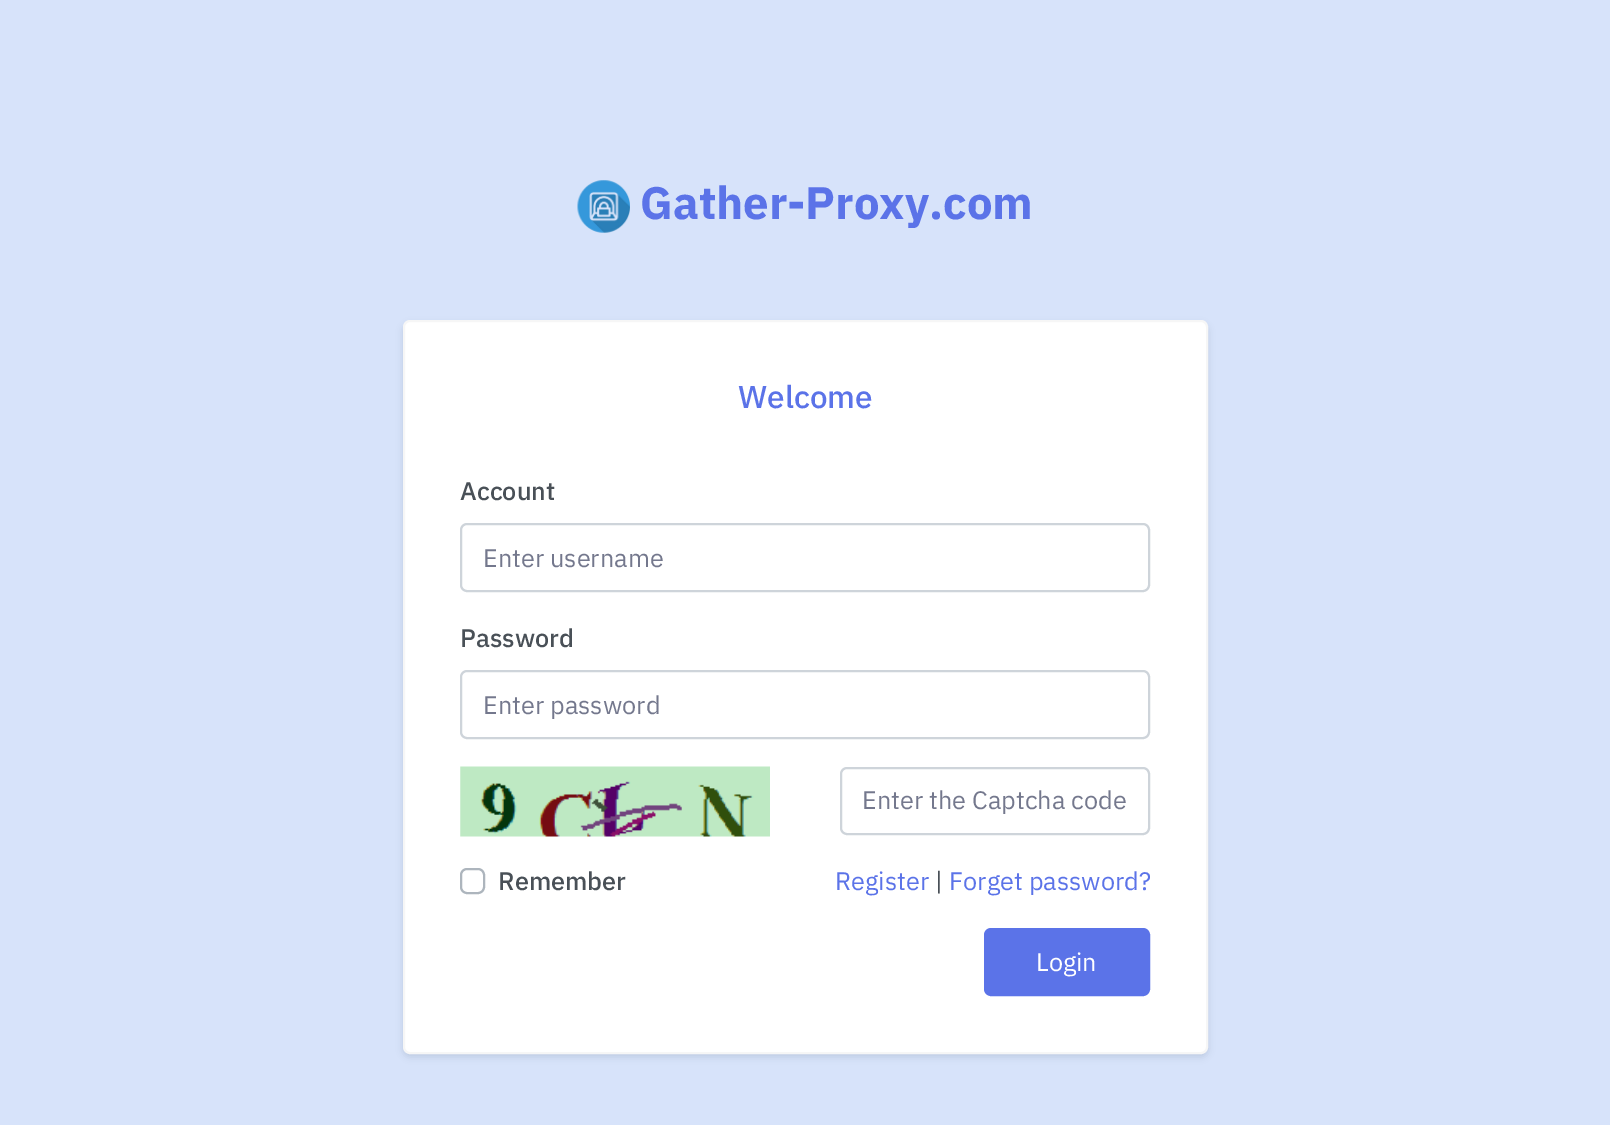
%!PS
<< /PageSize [1610 1125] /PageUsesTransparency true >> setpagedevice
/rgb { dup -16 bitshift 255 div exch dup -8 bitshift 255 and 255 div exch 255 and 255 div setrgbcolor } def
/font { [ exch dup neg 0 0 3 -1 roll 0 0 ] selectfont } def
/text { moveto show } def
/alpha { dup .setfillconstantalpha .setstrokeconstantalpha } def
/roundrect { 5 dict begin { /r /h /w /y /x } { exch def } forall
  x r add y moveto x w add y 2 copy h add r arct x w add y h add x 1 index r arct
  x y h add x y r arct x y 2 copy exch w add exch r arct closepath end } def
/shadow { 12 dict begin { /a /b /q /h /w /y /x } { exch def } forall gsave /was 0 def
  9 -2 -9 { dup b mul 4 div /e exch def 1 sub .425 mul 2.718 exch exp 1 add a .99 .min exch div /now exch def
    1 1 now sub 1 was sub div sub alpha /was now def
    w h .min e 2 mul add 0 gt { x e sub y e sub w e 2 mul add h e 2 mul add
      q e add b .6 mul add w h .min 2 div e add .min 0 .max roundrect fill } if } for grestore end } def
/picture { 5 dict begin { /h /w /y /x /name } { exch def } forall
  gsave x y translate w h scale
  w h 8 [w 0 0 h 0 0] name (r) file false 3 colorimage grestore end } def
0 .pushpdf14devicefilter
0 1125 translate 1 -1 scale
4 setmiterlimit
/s1 { /IBMPlexSans-Bold 45.5 font 16#5B73E8 rgb } def
/s2 { /IBMPlexSans-Medium 31.5 font 16#5B73E8 rgb } def
/s3 { /IBMPlexSans-Medium 25.25 font 16#495057 rgb } def
/s4 { /IBMPlexSans-Regular 25.25 font 16#74788D rgb } def
/s5 { /IBMPlexSans-Regular 25.25 font 16#5B73E8 rgb } def
/s6 { /IBMPlexSans-Regular 25.25 font 16#495057 rgb } def
/s7 { /IBMPlexSans-Regular 25.25 font 16#FFFFFF rgb } def
16#D7E3FA rgb
0 0 1610 1125 rectfill
(pic1.raw) 577 180 53 53 picture
s1
(Gather-Proxy.com) 640 219 text
16#0F223A rgb
403 324 805 733 7 3.5 0.12 shadow
16#FFFFFF rgb
404 321 803 732 6 roundrect gsave fill grestore
16#F6F6F6 rgb
2 setlinewidth
stroke
s2
(Welcome) 738 408 text
s3
(Account) 460 500 text
16#CED4DA rgb
461 524 688 67 6 roundrect stroke
s4
(Enter username) 483 567 text
s3
(Password) 460 647 text
16#CED4DA rgb
461 671 688 67 6 roundrect stroke
s4
(Enter password) 483 714 text
(pic2.raw) 460 766 310 71 picture
16#CED4DA rgb
841 768 308 66 6 roundrect stroke
s4
(Enter the Captcha code) 862 809 text
16#ADB5BD rgb
461 869 23 24 6 roundrect stroke
s3
(Remember) 498 890 text
s5
(Register) 835 890 text
s6
(|) 935 890 text
s5
(Forget password?) 949 890 text
985 929 164 66 6 roundrect gsave fill grestore
stroke
s7
(Login) 1036 971 text
.poppdf14devicefilter showpage
